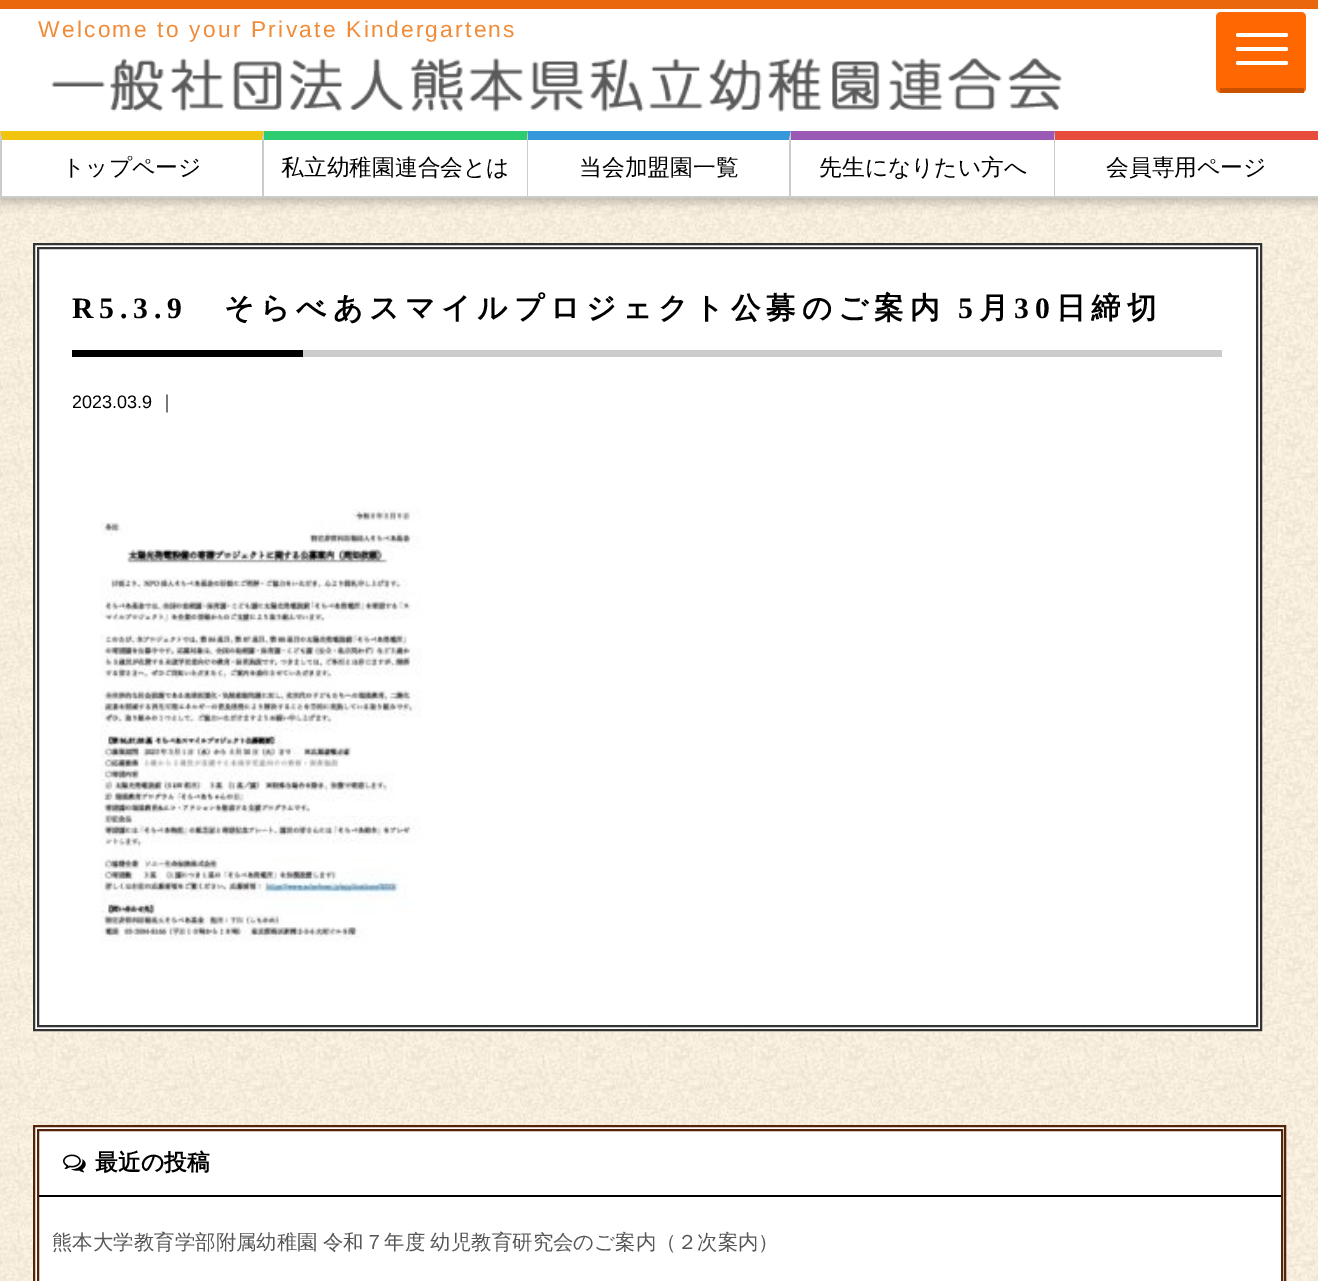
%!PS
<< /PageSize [1318 1281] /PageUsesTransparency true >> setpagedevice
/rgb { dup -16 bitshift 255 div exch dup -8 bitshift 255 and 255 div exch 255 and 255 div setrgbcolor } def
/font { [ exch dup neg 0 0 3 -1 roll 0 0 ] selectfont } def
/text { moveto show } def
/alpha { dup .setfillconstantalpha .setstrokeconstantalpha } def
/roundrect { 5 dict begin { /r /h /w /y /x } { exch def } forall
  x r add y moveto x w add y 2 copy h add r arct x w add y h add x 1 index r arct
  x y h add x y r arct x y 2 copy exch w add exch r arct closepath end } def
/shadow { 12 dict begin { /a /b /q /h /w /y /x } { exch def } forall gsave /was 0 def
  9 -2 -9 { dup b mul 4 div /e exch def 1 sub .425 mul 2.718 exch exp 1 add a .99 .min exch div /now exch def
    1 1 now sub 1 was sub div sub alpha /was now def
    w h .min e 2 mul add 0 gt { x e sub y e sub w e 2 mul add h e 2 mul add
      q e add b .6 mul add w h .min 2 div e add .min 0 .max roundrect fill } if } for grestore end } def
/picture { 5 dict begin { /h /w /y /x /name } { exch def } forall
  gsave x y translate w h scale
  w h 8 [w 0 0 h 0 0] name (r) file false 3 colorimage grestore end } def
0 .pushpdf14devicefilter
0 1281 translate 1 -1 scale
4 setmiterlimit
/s1 { /WenQuanYiZenHei-Medium 22.75 font 16#000000 rgb } def
/s2 { /LiberationSans-Regular 18 font 16#000000 rgb } def
/s3 { /WenQuanYiZenHei-Medium 18 font 16#000000 rgb } def
/s4 { /WenQuanYiZenHei-Bold 22.75 font 16#000000 rgb } def
16#FFFFFF rgb
0 0 1318 1281 rectfill
(pic1.raw) 0 198 1318 1083 picture
16#000000 rgb
0 5 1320 198 0 4.5 0.2 shadow
16#FFFFFF rgb
0 9 1318 187 rectfill
16#FF6700 rgb
1216 12 90 81 5 roundrect fill
16#C95100 rgb
1220 88 84 5 rectfill
16#FFFFFF rgb
1236 33 52 4 2 roundrect fill
1236 47 52 4 2 roundrect fill
1236 61 52 4 2 roundrect fill
16#EB670E rgb
0 0 1318 9 rectfill
/LiberationSans-Regular 22.75 font
16#F08B38 rgb
38 37 moveto 2.25 0 (Welcome to your Private Kindergartens) ashow
(pic2.raw) 51 58 1011 54 picture
16#CCCCCC rgb
0 196 1318 2 rectfill
16#F1C40F rgb
0 131 moveto 264 131 lineto 262 140 lineto 2 140 lineto closepath fill
16#CCCCCC rgb
264 131 moveto 264 196 lineto 262 196 lineto 262 140 lineto closepath fill
0 196 moveto 0 131 lineto 2 140 lineto 2 196 lineto closepath fill
s1
(トップページ) 62 175 text
16#2ECC71 rgb
264 131 moveto 528 131 lineto 527 140 lineto 264 140 lineto closepath fill
16#CCCCCC rgb
528 131 moveto 528 196 lineto 527 196 lineto 527 140 lineto closepath fill
s1
(私立幼稚園連合会とは) 281 175 text
16#3498DB rgb
528 131 moveto 791 131 lineto 789 140 lineto 528 140 lineto closepath fill
16#CCCCCC rgb
791 131 moveto 791 196 lineto 789 196 lineto 789 140 lineto closepath fill
s1
(当会加盟園一覧) 579 175 text
16#9B59B6 rgb
791 131 moveto 1055 131 lineto 1054 140 lineto 791 140 lineto closepath fill
16#CCCCCC rgb
1055 131 moveto 1055 196 lineto 1054 196 lineto 1054 140 lineto closepath fill
s1
(先生になりたい方へ) 819 175 text
16#E74C3C rgb
1055 131 moveto 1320 131 lineto 1318 140 lineto 1055 140 lineto closepath fill
s1
(会員専用ページ) 1106 175 text
16#FFFFFF rgb
34 244 moveto 1261 244 lineto 1261 1030 lineto 34 1030 lineto closepath gsave fill grestore
16#333333 rgb
2 setlinewidth
stroke
38 248 1219 778 rectstroke
16#CCCCCC rgb
303 350 919 7 rectfill
/LiberationSerif-Bold 29.6 font
16#000000 rgb
72 318 moveto 5.9 0 (R5.3.9) ashow
/WenQuanYiZenHei-Bold 29.6 font
224 318 moveto 5.9 0 (そらべあスマイルプロジェクト公募のご案内) ashow
/LiberationSerif-Bold 29.6 font
958 318 moveto 5.9 0 (5) ashow
/WenQuanYiZenHei-Bold 29.6 font
979 318 moveto 5.9 0 (月) ashow
/LiberationSerif-Bold 29.6 font
1014 318 moveto 5.9 0 (30) ashow
/WenQuanYiZenHei-Bold 29.6 font
1056 318 moveto 5.9 0 (日締切) ashow
72 350 231 7 rectfill
s2
(2023.03.9) 72 408 text
s3
(｜) 158 408 text
(pic3.raw) 100 508 322 434 picture
16#FFFFFF rgb
34 1126 moveto 1285 1126 lineto 1285 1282 lineto 34 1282 lineto closepath gsave fill grestore
16#53230A rgb
stroke
38 1130 1244 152 rectstroke
16#000000 rgb
39 1195 1242 2 rectfill
(pic4.raw) 63 1154 23 19 picture
s4
(最近の投稿) 95 1170 text
/WenQuanYiZenHei-Medium 20.45 font
16#565656 rgb
52 1249 moveto -1 0 32 (熊本大学教育学部附属幼稚園 令和７年度 幼児教育研究会のご案内（２次案内）) widthshow
.poppdf14devicefilter showpage
